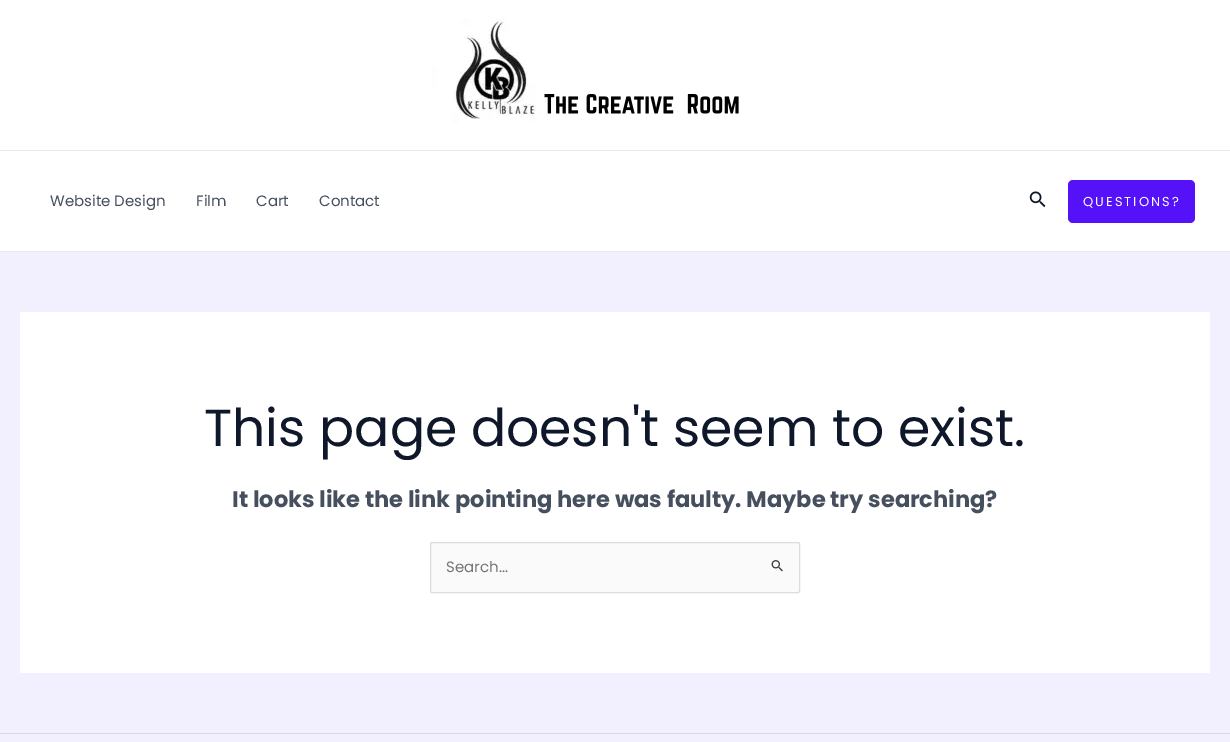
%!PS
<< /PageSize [1230 742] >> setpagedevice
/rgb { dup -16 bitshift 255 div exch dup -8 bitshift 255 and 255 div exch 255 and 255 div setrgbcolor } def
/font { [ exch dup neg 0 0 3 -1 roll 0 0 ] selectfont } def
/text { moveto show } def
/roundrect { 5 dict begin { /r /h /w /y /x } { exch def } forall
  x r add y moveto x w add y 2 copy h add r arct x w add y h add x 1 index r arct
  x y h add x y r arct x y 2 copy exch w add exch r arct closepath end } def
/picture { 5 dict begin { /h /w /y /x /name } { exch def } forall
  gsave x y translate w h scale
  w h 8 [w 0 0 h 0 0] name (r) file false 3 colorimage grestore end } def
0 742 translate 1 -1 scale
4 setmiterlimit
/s1 { /Poppins-Regular 15 font 16#454F5E rgb } def
/s2 { /Poppins-Regular 52 font 16#0F172A rgb } def
/s3 { /Poppins-Bold 22.5 font 16#454F5E rgb } def
/s4 { /Poppins-Regular 15 font 16#757575 rgb } def
16#F2F0FE rgb
0 0 1230 742 rectfill
16#FFFFFF rgb
0 0 1230 150 rectfill
16#EAEAEA rgb
0 150 1230 1 rectfill
(pic1.raw) 432 18 307 105 picture
16#FFFFFF rgb
0 151 1230 100 rectfill
16#EAEAEA rgb
0 251 1230 1 rectfill
s1
(Website Design) 50 206 text
(Film) 196 206 text
(Cart) 256 206 text
(Contact) 319 206 text
(pic2.raw) 1029 191 17 17 picture
16#5511F8 rgb
1068 180 127 43 5 roundrect fill
/Poppins-Regular 13 font
16#FFFFFF rgb
1083 206 moveto 2 0 (QUESTIONS?) ashow
20 312 1190 361 rectfill
s2
(This page doesn't seem to exist.) 204 446 text
s3
(It looks like the link pointing here was faulty. Maybe try searching?) 232 507 text
16#FAFAFA rgb
430.5 542.5 369 50 1.5 roundrect gsave fill grestore
16#DDDDDD rgb
stroke
s4
(Search...) 446 572 text
(pic3.raw) 771 560 12 12 picture
16#DAD8E5 rgb
0 733 1230 1 rectfill
showpage
